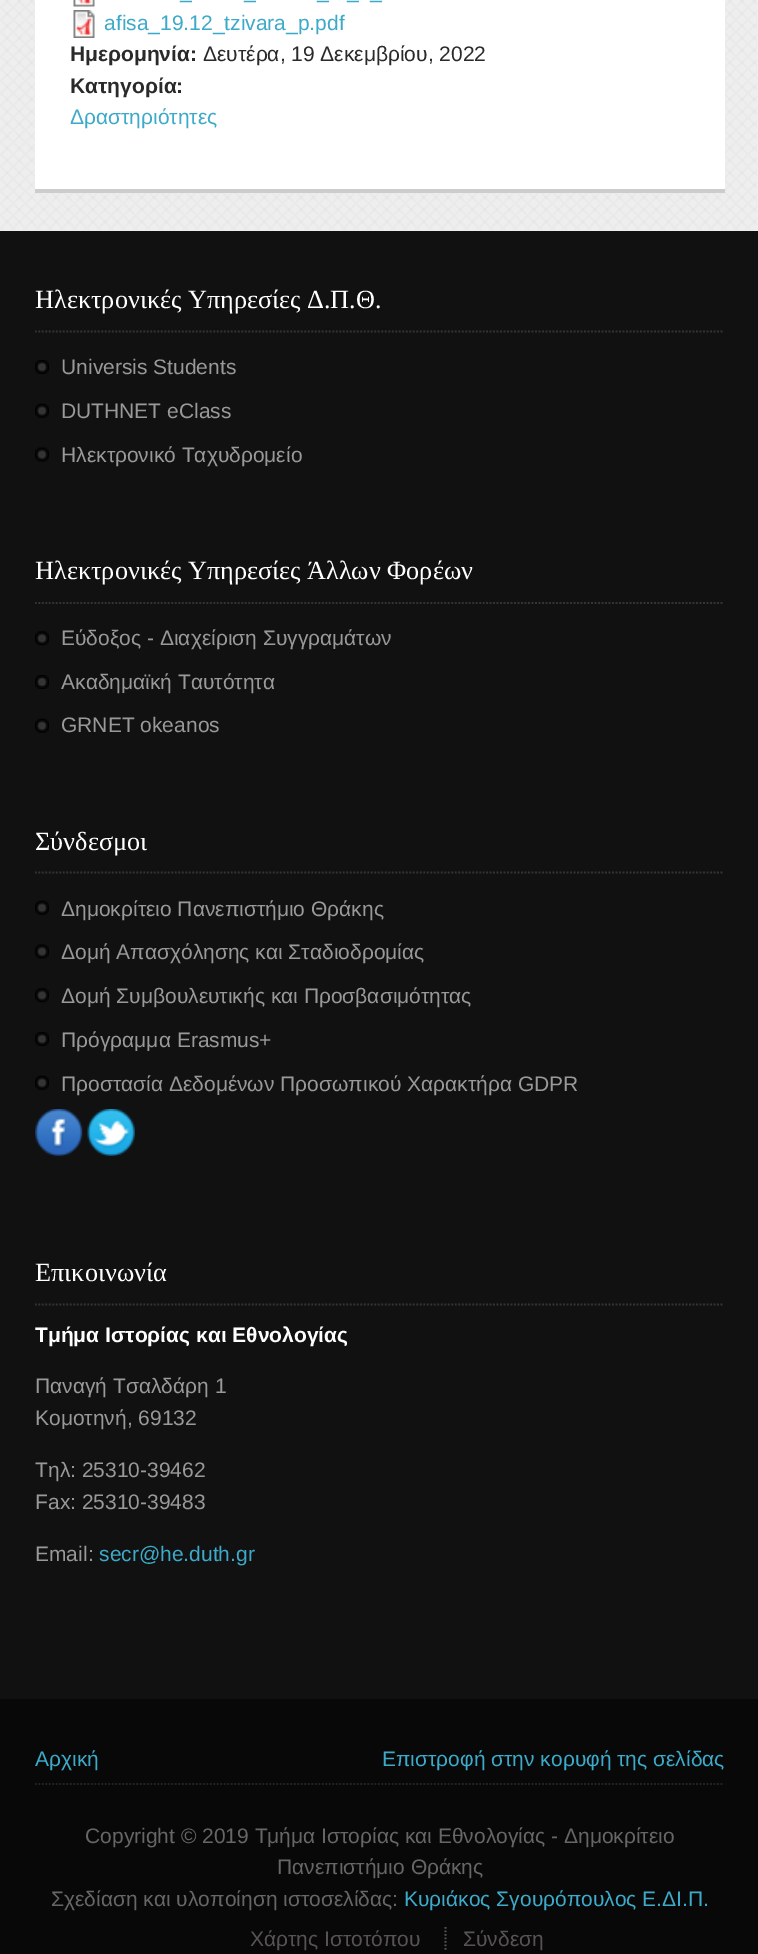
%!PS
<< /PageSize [758 1954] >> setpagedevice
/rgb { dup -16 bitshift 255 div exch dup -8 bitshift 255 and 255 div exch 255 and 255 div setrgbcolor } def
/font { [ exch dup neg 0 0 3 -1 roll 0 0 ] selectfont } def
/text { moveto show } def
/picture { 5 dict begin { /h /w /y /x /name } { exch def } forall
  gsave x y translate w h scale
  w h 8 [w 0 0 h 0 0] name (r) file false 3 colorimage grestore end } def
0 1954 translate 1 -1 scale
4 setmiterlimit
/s1 { /LiberationSans-Regular 21 font 16#3CAAC8 rgb } def
/s2 { /LiberationSans-Bold 21 font 16#2A2A2A rgb } def
/s3 { /LiberationSans-Regular 21 font 16#2A2A2A rgb } def
/s4 { /LiberationSerif-Regular 26.25 font 16#FFFFFF rgb } def
/s5 { /LiberationSans-Regular 21 font 16#999999 rgb } def
/s6 { /LiberationSans-Bold 21 font 16#FFFFFF rgb } def
/s7 { /LiberationSans-Regular 21 font 16#666666 rgb } def
/s8 { /LiberationSans-Regular 21 font 16#575353 rgb } def
16#EEEEEE rgb
0 0 758 1954 rectfill
(pic1.raw) 0 0 757 230 picture
16#FFFFFF rgb
35 0 690 189 rectfill
16#CCCCCC rgb
35 189 690 4 rectfill
(pic2.raw) 73 0 22 7 picture
s1
(_) 180 -2 text
(_) 244 -2 text
(_) 317 -2 text
(_2_) 347 -2 text
(pic3.raw) 73 10 22 28 picture
(afisa_19.12_tzivara_p.pdf) 104 30 text
s2
(Ημερομηνία:) 70 61 text
s3
(Δευτέρα, 19 Δεκεμβρίου, 2022) 203 61 text
s2
(Κατηγορία:) 70 93 text
s1
(Δραστηριότητες) 70 124 text
16#111111 rgb
0 231 758 1468 rectfill
16#333333 rgb
1.8 setlinewidth
[1.75 1.75] 0 setdash
35 331.5 moveto 724.5 331.5 lineto stroke
s4
(Ηλεκτρονικές Υπηρεσίες Δ.Π.Θ.) 35 308 text
(pic4.raw) 35 360 14 14 picture
s5
(Universis Students) 61 374 text
(pic5.raw) 35 403 14 15 picture
(DUTHNET eClass) 61 418 text
(pic6.raw) 35 447 14 15 picture
(Ηλεκτρονικό Ταχυδρομείο) 61 462 text
16#333333 rgb
35 603 moveto 724.5 603 lineto stroke
s4
(Ηλεκτρονικές Υπηρεσίες Άλλων Φορέων) 35 579 text
(pic7.raw) 35 631 14 15 picture
s5
(Εύδοξος - Διαχείριση Συγγραμάτων) 61 645 text
(pic4.raw) 35 675 14 14 picture
(Ακαδημαϊκή Ταυτότητα) 61 689 text
(pic5.raw) 35 718 14 15 picture
(GRNET okeanos) 61 732 text
16#333333 rgb
35 872.5 moveto 724.5 872.5 lineto stroke
s4
(Σύνδεσμοι) 35 850 text
(pic5.raw) 35 900 14 15 picture
s5
(Δημοκρίτειο Πανεπιστήμιο Θράκης) 61 916 text
(pic6.raw) 35 944 14 15 picture
(Δομή Απασχόλησης και Σταδιοδρομίας) 61 959 text
(pic7.raw) 35 988 14 15 picture
(Δομή Συμβουλευτικής και Προσβασιμότητας) 61 1003 text
(pic4.raw) 35 1032 14 14 picture
(Πρόγραμμα Erasmus+) 61 1047 text
(pic5.raw) 35 1075 14 15 picture
(Προστασία Δεδομένων Προσωπικού Χαρακτήρα GDPR) 61 1091 text
(pic8.raw) 35 1109 48 48 picture
(pic9.raw) 87 1109 48 48 picture
16#333333 rgb
35 1304.5 moveto 724.5 1304.5 lineto stroke
s4
(Επικοινωνία) 35 1281 text
s6
(Τμήμα Ιστορίας και Εθνολογίας) 35 1342 text
s5
(Παναγή Τσαλδάρη 1) 35 1393 text
(Κομοτηνή, 69132) 35 1425 text
(Τηλ: 25310-39462) 35 1477 text
(Fax: 25310-39483) 35 1509 text
(Email:) 35 1561 text
s1
(secr@he.duth.gr) 99 1561 text
16#080808 rgb
0 1699 758 255 rectfill
16#222222 rgb
35 1784 moveto 724.5 1784 lineto stroke
s1
(Αρχική) 35 1766 text
(Επιστροφή στην κορυφή της σελίδας) 382 1766 text
s7
(Copyright © 2019 Τμήμα Ιστορίας και Εθνολογίας - Δημοκρίτειο) 85 1843 text
(Πανεπιστήμιο Θράκης) 277 1874 text
(Σχεδίαση και υλοποίηση ιστοσελίδας:) 51 1906 text
s1
(Κυριάκος Σγουρόπουλος Ε.ΔΙ.Π.) 404 1906 text
s8
(Χάρτης Ιστοτόπου) 250 1946 text
445.5 1927 moveto 445.5 1951 lineto stroke
(Σύνδεση) 463 1946 text
showpage
